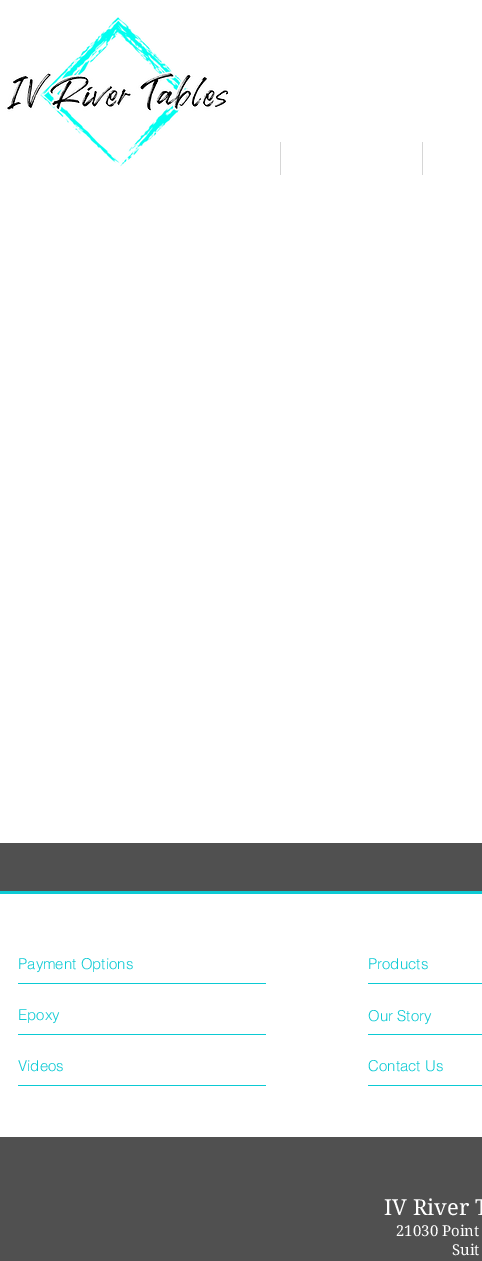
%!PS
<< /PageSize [482 1261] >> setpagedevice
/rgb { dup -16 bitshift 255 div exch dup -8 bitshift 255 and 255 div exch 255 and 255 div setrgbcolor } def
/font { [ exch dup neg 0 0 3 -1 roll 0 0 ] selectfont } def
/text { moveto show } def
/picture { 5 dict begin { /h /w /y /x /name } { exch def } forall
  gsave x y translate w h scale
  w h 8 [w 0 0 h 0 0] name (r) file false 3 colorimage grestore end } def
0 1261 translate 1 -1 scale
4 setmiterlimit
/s1 { /helvetica-Light 15 font 16#0BCAD4 rgb } def
/s2 { /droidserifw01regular-Regular 22 font 16#FFFFFF rgb } def
/s3 { /droidserifw01regular-Regular 15 font 16#FFFFFF rgb } def
16#FFFFFF rgb
0 0 482 1261 rectfill
(pic1.raw) 5 17 223 150 picture
16#D6D6D6 rgb
280 142 1 33 rectfill
422 142 1 33 rectfill
16#505050 rgb
0 843 482 418 rectfill
16#FFFFFF rgb
0 894 482 243 rectfill
16#0BCAD4 rgb
0 891 482 3 rectfill
s1
(Payment Options) 18 969 text
(Products) 368 969 text
18 983 248 1 rectfill
368 983 114 1 rectfill
(Epoxy) 18 1020 text
(Our Story) 368 1021 text
18 1034 248 1 rectfill
368 1034 114 1 rectfill
(Videos) 18 1071 text
(Contact Us) 368 1071 text
18 1085 248 1 rectfill
368 1085 114 1 rectfill
s2
(IV River T) 384 1215 text
s3
(21030 Point) 396 1236 text
(Suit) 452 1255 text
showpage
